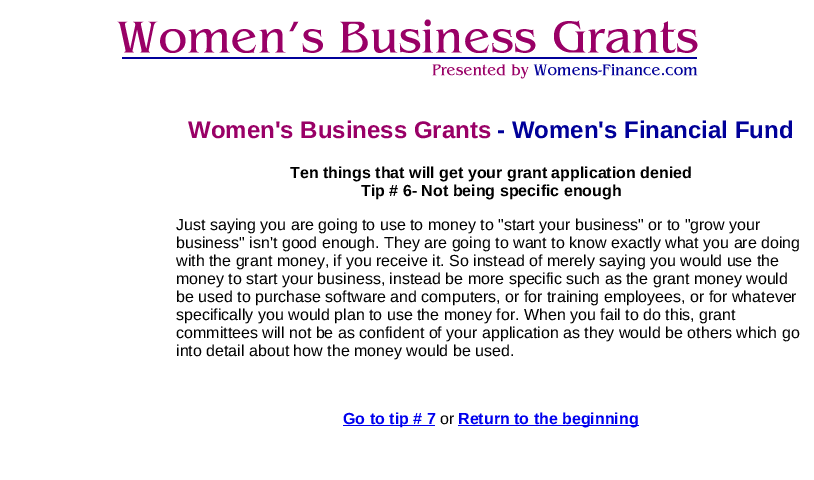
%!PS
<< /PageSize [814 480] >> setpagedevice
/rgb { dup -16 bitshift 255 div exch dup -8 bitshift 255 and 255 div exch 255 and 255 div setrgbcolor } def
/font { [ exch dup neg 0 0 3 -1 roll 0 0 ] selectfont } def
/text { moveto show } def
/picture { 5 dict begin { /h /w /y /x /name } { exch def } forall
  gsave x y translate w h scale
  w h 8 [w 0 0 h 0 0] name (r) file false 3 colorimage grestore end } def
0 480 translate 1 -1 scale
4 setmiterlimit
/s1 { /LiberationSans-Bold 24 font 16#990066 rgb } def
/s2 { /LiberationSans-Bold 24 font 16#000099 rgb } def
/s3 { /LiberationSans-Bold 16 font 16#000000 rgb } def
/s4 { /LiberationSans-Regular 16 font 16#000000 rgb } def
/s5 { /LiberationSans-Bold 16 font 16#0000EE rgb } def
16#FFFFFF rgb
0 0 814 480 rectfill
(pic1.raw) 117 19 581 60 picture
s1
(Women's Business Grants) 188 138 text
s2
(- Women's Financial Fund) 497 138 text
s3
(Ten things that will get your grant application denied) 290 178 text
(Tip # 6- Not being specific enough) 361 196 text
s4
(Just saying you are going to use to money to "start your business" or to "grow your) 176 230 text
(business" isn't good enough. They are going to want to know exactly what you are doing) 176 248 text
(with the grant money, if you receive it. So instead of merely saying you would use the) 176 266 text
(money to start your business, instead be more specific such as the grant money would) 176 284 text
(be used to purchase software and computers, or for training employees, or for whatever) 176 302 text
(specifically you would plan to use the money for. When you fail to do this, grant) 176 320 text
(committees will not be as confident of your application as they would be others which go) 176 338 text
(into detail about how the money would be used.) 176 356 text
16#0000EE rgb
343 425 92 1 rectfill
s5
(Go to tip # 7) 343 424 text
s4
(or) 440 424 text
16#0000EE rgb
458 425 181 1 rectfill
s5
(Return to the beginning) 458 424 text
showpage
